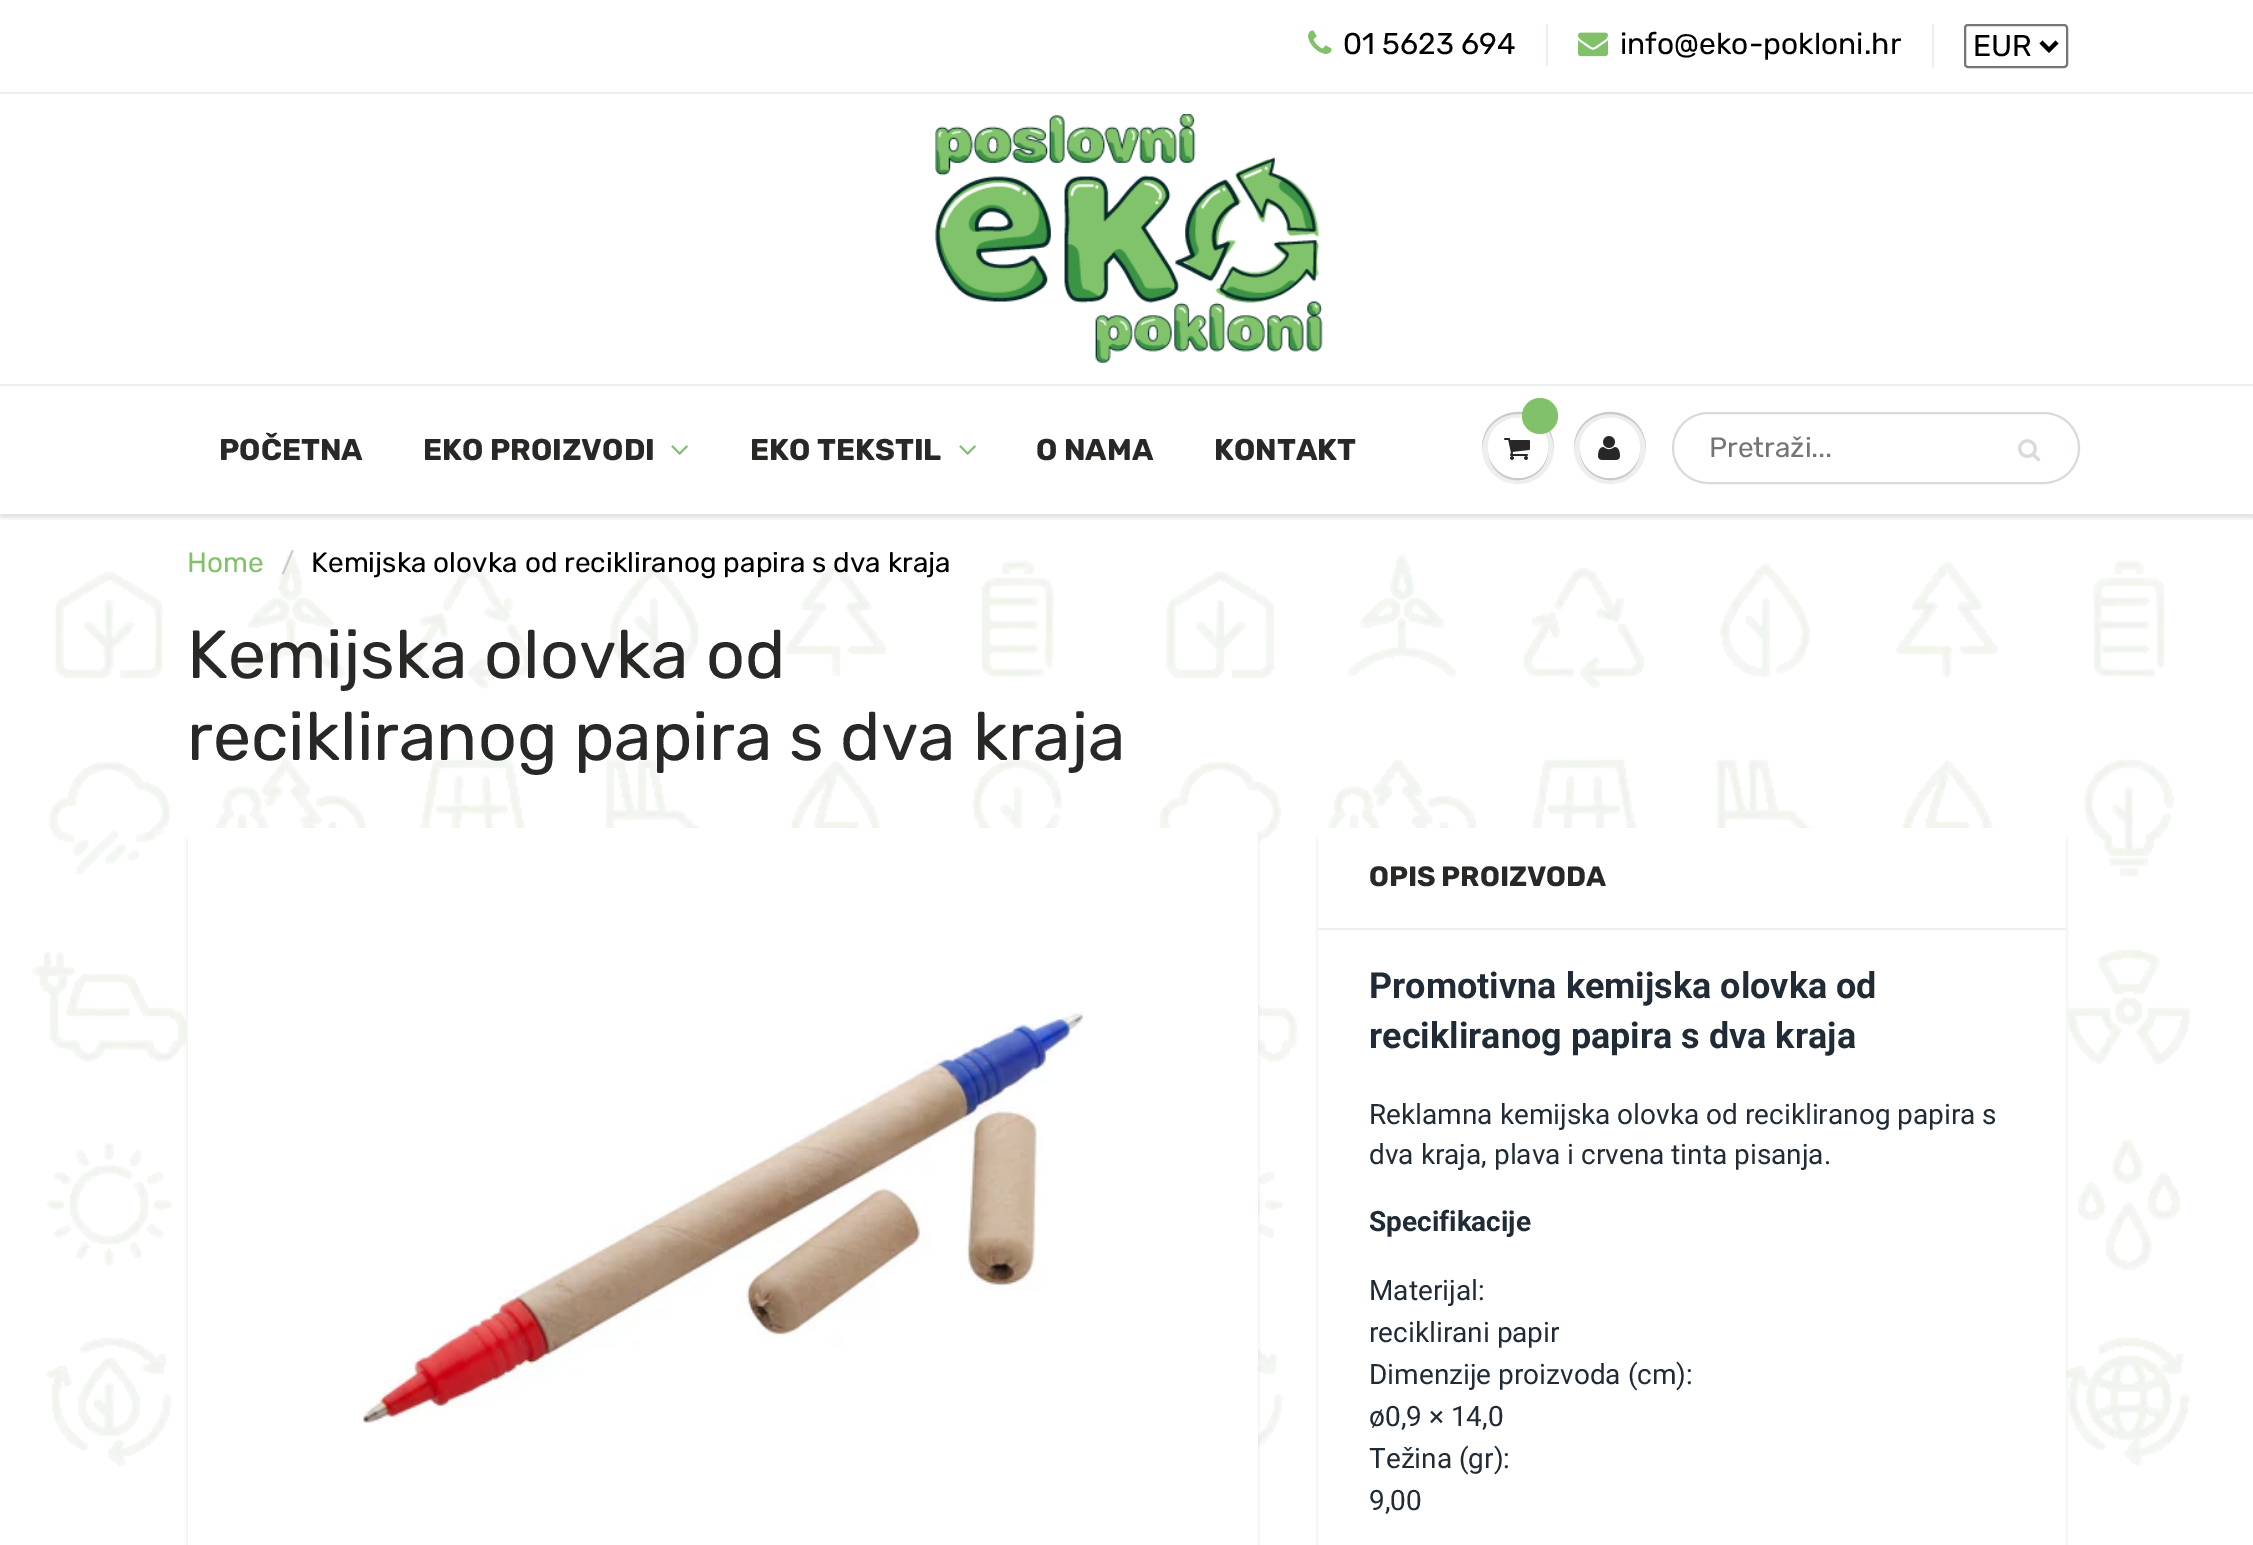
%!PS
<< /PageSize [2253 1545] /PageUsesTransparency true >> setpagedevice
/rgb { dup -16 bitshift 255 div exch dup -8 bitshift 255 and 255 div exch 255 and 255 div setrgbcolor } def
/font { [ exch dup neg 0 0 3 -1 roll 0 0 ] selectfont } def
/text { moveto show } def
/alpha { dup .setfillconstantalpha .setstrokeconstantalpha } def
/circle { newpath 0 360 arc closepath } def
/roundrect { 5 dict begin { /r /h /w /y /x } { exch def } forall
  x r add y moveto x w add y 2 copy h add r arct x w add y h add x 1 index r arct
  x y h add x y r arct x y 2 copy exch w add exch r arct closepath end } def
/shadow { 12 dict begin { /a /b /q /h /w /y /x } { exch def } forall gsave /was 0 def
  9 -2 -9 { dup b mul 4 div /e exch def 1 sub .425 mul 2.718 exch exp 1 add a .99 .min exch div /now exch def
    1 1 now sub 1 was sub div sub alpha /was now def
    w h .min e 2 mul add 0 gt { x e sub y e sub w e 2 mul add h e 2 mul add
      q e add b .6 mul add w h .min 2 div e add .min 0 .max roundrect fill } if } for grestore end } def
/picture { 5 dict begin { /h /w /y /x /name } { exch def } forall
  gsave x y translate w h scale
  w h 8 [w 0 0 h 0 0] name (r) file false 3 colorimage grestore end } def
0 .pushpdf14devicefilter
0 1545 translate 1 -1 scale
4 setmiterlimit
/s1 { /Rubik-Regular 30 font 16#000000 rgb } def
/s2 { /Rubik-Bold 30 font 16#282827 rgb } def
/s3 { /Rubik-Regular 28 font 16#757575 rgb } def
/s4 { /Rubik-Regular 28 font 16#81C169 rgb } def
/s5 { /Rubik-Regular 28 font 16#CCCCCC rgb } def
/s6 { /Rubik-Regular 28 font 16#000000 rgb } def
/s7 { /Rubik-Regular 68 font 16#282827 rgb } def
/s8 { /Rubik-Bold 28 font 16#282827 rgb } def
/s9 { /Roboto-Bold 36 font 16#212B36 rgb } def
/s10 { /Roboto-Regular 28 font 16#212B36 rgb } def
/s11 { /Roboto-Bold 28 font 16#212B36 rgb } def
16#FFFFFF rgb
0 0 2253 1545 rectfill
(pic1.raw) 1308 30 24 24 picture
s1
(01 5623 694) 1343 54 text
16#ECEFEF rgb
1546 24 2 42 rectfill
(pic2.raw) 1578 32 30 25 picture
s1
(info@eko-pokloni.hr) 1620 54 text
16#ECEFEF rgb
1932 24 2 44 rectfill
16#767676 rgb
2 setlinewidth
1965 25 102 42 3 roundrect stroke
16#000000 rgb
4 setlinewidth
2041 42 moveto 2049 50 lineto 2057 42 lineto stroke
(EUR) 1973 56 text
16#ECEFEF rgb
0 92 2253 2 rectfill
(pic3.raw) 935 114 388 249 picture
gsave
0 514 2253 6 rectclip
16#0B191C rgb
0 388 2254 130 0 2 0.12 shadow
grestore
0 384 2253 2 rectfill
s2
(POČETNA) 219 460 text
(EKO PROIZVODI) 423 460 text
(pic4.raw) 671 445 17 10 picture
(EKO TEKSTIL) 750 460 text
(pic4.raw) 959 445 17 10 picture
(O NAMA) 1036 460 text
(KONTAKT) 1214 460 text
16#EDEFEF rgb
1518 448 36 circle fill
16#C9CBCB rgb
1548 449 moveto 1547 465 1534 478 1518 478 curveto 1502 478 1489 465 1488 449 curveto 1488 455 1490 462 1493 467 curveto 1510 492 1549 479 1548 449 curveto closepath fill
1518 414 moveto 1538 414 1553 429 1554 449 curveto 1554 442 1552 434 1548 428 curveto 1528 398 1481 413 1482 449 curveto 1483 429 1498 414 1518 414 curveto closepath fill
16#FFFFFF rgb
1518 448 30 circle fill
1518 420 moveto 1535 420 1547 432 1548 449 curveto 1548 443 1546 436 1543 431 curveto 1526 406 1487 419 1488 449 curveto 1489 432 1501 420 1518 420 curveto closepath fill
16#81C169 rgb
1540 416 18 circle fill
(pic5.raw) 1504 438 26 22 picture
16#EDEFEF rgb
1610 448 36 circle fill
16#C9CBCB rgb
1640 449 moveto 1639 465 1626 478 1610 478 curveto 1594 478 1581 465 1580 449 curveto 1579 479 1618 492 1635 467 curveto 1638 462 1640 455 1640 449 curveto closepath fill
1610 414 moveto 1630 414 1645 429 1646 449 curveto 1646 442 1644 434 1640 428 curveto 1620 398 1573 413 1574 449 curveto 1575 429 1590 414 1610 414 curveto closepath fill
16#FFFFFF rgb
1610 448 30 circle fill
1610 420 moveto 1627 420 1639 432 1640 449 curveto 1640 443 1638 436 1635 431 curveto 1618 406 1579 419 1580 449 curveto 1581 432 1593 420 1610 420 curveto closepath fill
(pic6.raw) 1598 436 22 24 picture
16#D7DBDB rgb
2 setlinewidth
1673 413 406 70 35 roundrect stroke
s3
(Pretraži...) 1709 457 text
(pic7.raw) 2018 439 23 23 picture
(pic8.raw) 32 554 2158 912 picture
s4
(Home) 187 572 text
s5
(/) 281 572 text
s6
(Kemijska olovka od recikliranog papira s dva kraja) 311 572 text
s7
(Kemijska olovka od) 187 678 text
(recikliranog papira s dva kraja) 187 760 text
16#0B191C rgb
188 832 1070 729 10 2 0.1 shadow
16#FFFFFF rgb
188 828 1070 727 10 roundrect fill
(pic9.raw) 360 1011 724 413 picture
16#0B191C rgb
1318 832 748 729 10 2 0.1 shadow
16#FFFFFF rgb
1318 828 748 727 10 roundrect fill
16#EFEFEF rgb
1318 928 748 2 rectfill
s8
(OPIS PROIZVODA) 1369 886 text
s9
(Promotivna kemijska olovka od) 1369 998 text
(recikliranog papira s dva kraja) 1369 1048 text
s10
(Reklamna kemijska olovka od recikliranog papira s) 1369 1124 text
(dva kraja, plava i crvena tinta pisanja.) 1369 1164 text
s11
(Specifikacije) 1369 1231 text
s10
(Materijal:) 1369 1300 text
(reciklirani papir) 1369 1342 text
(Dimenzije proizvoda \(cm\):) 1369 1384 text
(ø0,9 × 14,0) 1369 1426 text
(Težina \(gr\):) 1369 1468 text
(9,00) 1369 1510 text
.poppdf14devicefilter showpage
